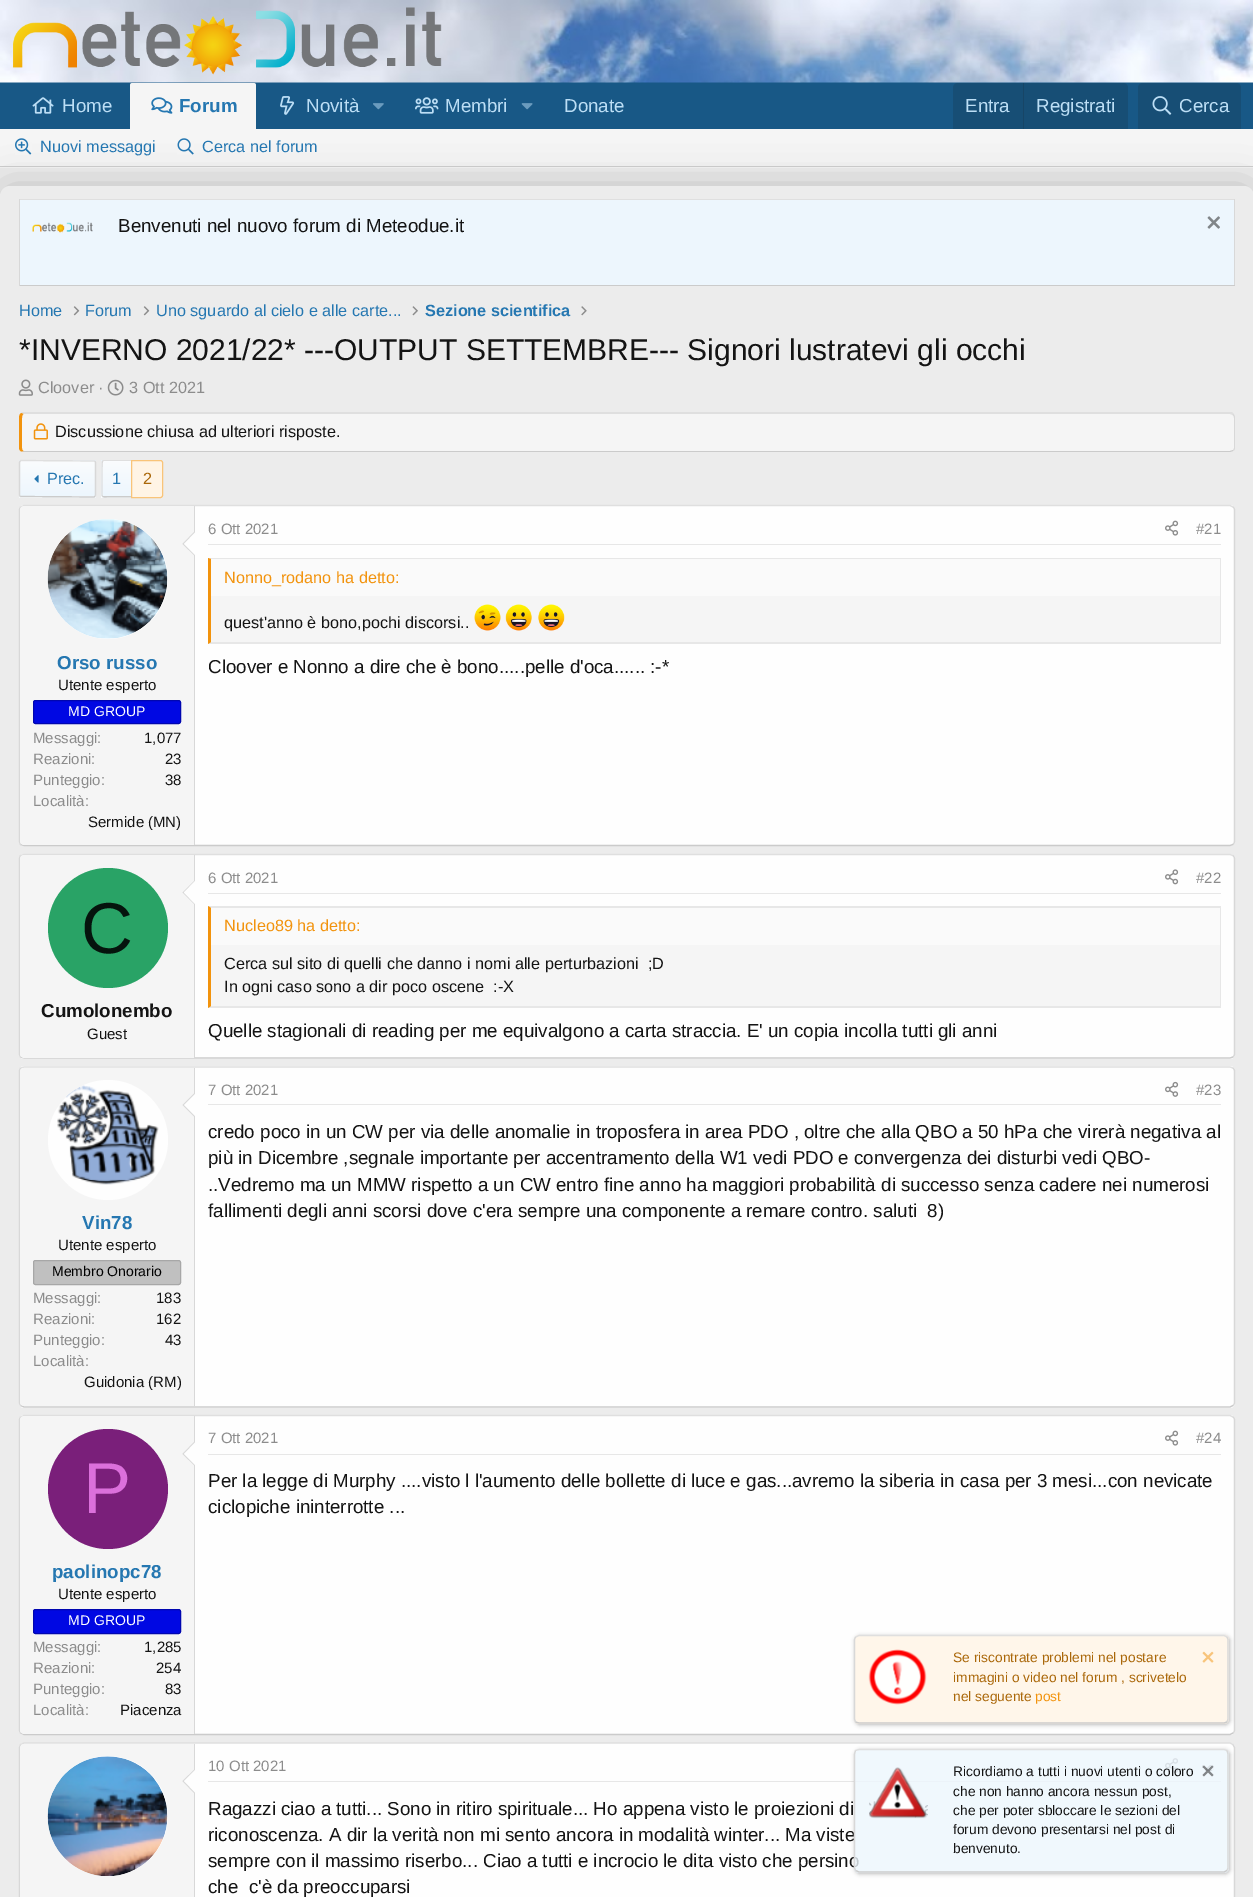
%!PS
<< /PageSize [1253 1897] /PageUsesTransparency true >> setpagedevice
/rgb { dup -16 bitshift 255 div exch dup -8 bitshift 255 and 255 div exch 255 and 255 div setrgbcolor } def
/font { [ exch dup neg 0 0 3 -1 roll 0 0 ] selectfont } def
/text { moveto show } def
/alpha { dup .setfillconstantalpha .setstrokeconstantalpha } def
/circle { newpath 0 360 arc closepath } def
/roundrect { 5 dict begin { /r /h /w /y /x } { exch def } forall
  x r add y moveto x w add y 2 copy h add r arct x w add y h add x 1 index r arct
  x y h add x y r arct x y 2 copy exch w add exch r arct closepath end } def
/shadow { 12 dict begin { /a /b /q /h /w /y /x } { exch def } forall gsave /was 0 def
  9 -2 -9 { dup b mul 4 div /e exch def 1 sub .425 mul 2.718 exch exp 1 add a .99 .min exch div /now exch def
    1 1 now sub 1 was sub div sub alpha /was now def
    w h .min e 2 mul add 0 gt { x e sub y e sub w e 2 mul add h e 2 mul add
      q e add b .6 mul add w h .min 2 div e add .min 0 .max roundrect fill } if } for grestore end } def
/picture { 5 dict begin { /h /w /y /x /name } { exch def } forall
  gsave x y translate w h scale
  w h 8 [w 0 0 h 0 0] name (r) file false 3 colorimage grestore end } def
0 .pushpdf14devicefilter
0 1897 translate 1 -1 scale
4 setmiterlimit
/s1 { /LiberationSans-Regular 18.75 font 16#BCDEF5 rgb } def
/s2 { /LiberationSans-Bold 18.75 font 16#2577B1 rgb } def
/s3 { /LiberationSans-Regular 16.25 font 16#2577B1 rgb } def
/s4 { /LiberationSans-Regular 18.75 font 16#141414 rgb } def
/s5 { /LiberationSans-Bold 16.25 font 16#2577B1 rgb } def
/s6 { /LiberationSans-Regular 30 font 16#141414 rgb } def
/s7 { /LiberationSans-Regular 16.25 font 16#8C8C8C rgb } def
/s8 { /LiberationSans-Regular 16.25 font 16#141414 rgb } def
/s9 { /LiberationSans-Regular 16.25 font 16#AA6709 rgb } def
/s10 { /LiberationSans-Regular 15 font 16#8C8C8C rgb } def
/s11 { /LiberationSans-Regular 16.25 font 16#F2930D rgb } def
/s12 { /LiberationSans-Regular 15 font 16#141414 rgb } def
/s13 { /LiberationSans-Regular 14 font 16#FFFFFF rgb } def
/s14 { /LiberationSans-Regular 72 font 16#05140D rgb } def
/s15 { /LiberationSans-Bold 18.75 font 16#141414 rgb } def
/s16 { /LiberationSans-Regular 14 font 16#000000 rgb } def
/s17 { /LiberationSans-Regular 72 font 16#DB70DB rgb } def
/s18 { /LiberationSans-Regular 13.75 font 16#AA6709 rgb } def
/s19 { /LiberationSans-Regular 13.75 font 16#F2930D rgb } def
/s20 { /LiberationSans-Regular 13.75 font 16#141414 rgb } def
16#ECECEC rgb
0 0 1253 1897 rectfill
16#185886 rgb
0 82 1253 1 rectfill
(pic1.raw) 0 0 1253 83 picture
(pic2.raw) 13 7 429 68 picture
16#F5F5F5 rgb
0 129 1253 39 rectfill
16#CBCBCB rgb
0 166 1253 1 rectfill
16#BEBEBE rgb
0 186 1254 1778 10 19 1 shadow
16#185886 rgb
0 83 1253 46 rectfill
(pic3.raw) 32 97 22 17 picture
s1
(Home) 62 112 text
16#F5F5F5 rgb
132.5 83 moveto 253.5 83 lineto 255 83 256 84 256 85.5 curveto 256 129 lineto 130 129 lineto 130 85.5 lineto 130 84 131 83 132.5 83 curveto closepath fill
(pic4.raw) 151 97 22 17 picture
s2
(Forum) 179 112 text
(pic5.raw) 280 96 15 19 picture
s1
(Novità) 306 112 text
(pic6.raw) 373 103 11 7 picture
(pic7.raw) 415 97 24 17 picture
(Membri) 445 112 text
(pic8.raw) 521 103 12 7 picture
(Donate) 564 112 text
16#174E75 rgb
958 83 moveto 1123 83 lineto 1126 83 1128 85 1128 88 curveto 1128 129 lineto 953 129 lineto 953 88 lineto 953 85 955 83 958 83 curveto closepath fill
s1
(Entra) 965 112 text
16#174566 rgb
1023 83 1 46 rectfill
s1
(Registrati) 1036 112 text
16#174E75 rgb
1143 83 moveto 1236 83 lineto 1239 83 1241 85 1241 88 curveto 1241 129 lineto 1138 129 lineto 1138 88 lineto 1138 85 1140 83 1143 83 curveto closepath fill
(pic9.raw) 1152 96 20 19 picture
s1
(Cerca) 1179 112 text
(pic10.raw) 15 138 17 17 picture
s3
(Nuovi messaggi) 40 152 text
(pic11.raw) 177 138 17 17 picture
(Cerca nel forum) 202 152 text
16#ECECEC rgb
0 186 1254 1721 10 roundrect fill
16#DFDFDF rgb
19 199 1216 1 rectfill
16#D8D8D8 rgb
1234 199 1 87 rectfill
16#CBCBCB rgb
19 285 1216 1 rectfill
16#D8D8D8 rgb
19 199 1 87 rectfill
16#EDF6FD rgb
20 200 1214 85 rectfill
(pic12.raw) 32 222 61 11 picture
s4
(Benvenuti nel nuovo forum di Meteodue.it) 118 232 text
(pic13.raw) 1207 216 13 13 picture
s3
(Home) 19 316 text
(pic14.raw) 73 306 7 10 picture
(Forum) 85 316 text
(pic14.raw) 143 306 7 10 picture
(Uno sguardo al cielo e alle carte...) 156 316 text
(pic15.raw) 412 306 6 10 picture
s5
(Sezione scientifica) 425 316 text
(pic16.raw) 581 306 6 10 picture
s6
(*INVERNO 2021/22* ---OUTPUT SETTEMBRE--- Signori lustratevi gli occhi) 19 360 text
(pic17.raw) 18 379 15 17 picture
s7
(Cloover ·) 38 393 text
(pic18.raw) 107 379 17 17 picture
(3 Ott 2021) 129 393 text
16#F5F5F5 rgb
24 414 moveto 1230 414 lineto 1232 414 1234 415 1234 418 curveto 1234 448 lineto 1234 450 1232 451 1230 451 curveto 24 451 lineto 23 451 22 450 22 448 curveto 22 418 lineto 22 415 23 414 24 414 curveto closepath fill
16#DFDFDF rgb
24 414 moveto 21 413 lineto 22 412 lineto 1232 412 lineto 1234 414 lineto 1233 415 lineto 1230 414 lineto closepath fill
16#D8D8D8 rgb
1235 448 moveto 1235 418 lineto 1235 416.5 1234.5 415 1233.5 414 curveto 1232.5 415 lineto 1233.5 415.5 1234 416.5 1234 418 curveto 1234 448 lineto 1234 449 1233.5 450 1233 450 curveto 1233.5 451 lineto 1234.5 450 1235 449 1235 448 curveto closepath fill
16#CBCBCB rgb
1233 451 moveto 1230 452 lineto 24 452 lineto 22 452 lineto 24 451 lineto 1230 451 lineto 1233 450 lineto closepath fill
16#F2930D rgb
21.5 451.5 moveto 20 451 19 449.5 19 448 curveto 19 418 lineto 19 416 19.5 414.5 21 413 curveto 23.5 414 lineto 22.5 414.5 22 415.5 22 418 curveto 22 448 lineto 22 449.5 22.5 450.5 23.5 451 curveto closepath fill
(pic19.raw) 33 423 15 17 picture
s8
(Discussione chiusa ad ulteriori risposte.) 55 437 text
gsave
19 460 77 38 2.5 roundrect clip newpath
gsave 19 460 moveto 96 460 lineto 96 461 lineto 19 461 lineto closepath clip newpath
<< /ShadingType 2 /ColorSpace /DeviceRGB /Coords [58 461 58 426] /Extend [true true] /Function << /FunctionType 2 /Domain [0 1] /C0 [0.929 0.965 0.992] /C1 [0.98 0.988 0.996] /N 1 >> >> shfill grestore
grestore
gsave 19 461 moveto 96 461 lineto 96 496 lineto 19 496 lineto closepath clip newpath
<< /ShadingType 2 /ColorSpace /DeviceRGB /Coords [58 496 58 461] /Extend [true true] /Function << /FunctionType 2 /Domain [0 1] /C0 [0.929 0.965 0.992] /C1 [0.98 0.988 0.996] /N 1 >> >> shfill grestore
gsave
19 460 77 38 2.5 roundrect clip newpath
gsave 19 496 moveto 96 496 lineto 96 498 lineto 19 498 lineto closepath clip newpath
<< /ShadingType 2 /ColorSpace /DeviceRGB /Coords [58 531 58 496] /Extend [true true] /Function << /FunctionType 2 /Domain [0 1] /C0 [0.929 0.965 0.992] /C1 [0.98 0.988 0.996] /N 1 >> >> shfill grestore
grestore
16#DFDFDF rgb
1.2 setlinewidth
20 461 moveto 21 460.5 lineto 95 461 lineto stroke
16#D8D8D8 rgb
95 461 moveto 95.5 462.5 lineto 95.5 495 lineto 95 496.5 lineto stroke
16#CBCBCB rgb
95 496.5 moveto 94 497 lineto 20 496.5 lineto stroke
16#D8D8D8 rgb
20 496.5 moveto 19.5 495 lineto 19.5 462.5 lineto 20 461 lineto stroke
(pic20.raw) 34 475 5 8 picture
s3
(Prec.) 47 484 text
gsave 101 460 moveto 104 460 lineto 104 461 lineto 101 461 lineto closepath clip newpath
<< /ShadingType 2 /ColorSpace /DeviceRGB /Coords [117 461 117 426] /Extend [true true] /Function << /FunctionType 2 /Domain [0 1] /C0 [0.929 0.965 0.992] /C1 [0.98 0.988 0.996] /N 1 >> >> shfill grestore
gsave 101 461 moveto 131 461 lineto 131 496 lineto 101 496 lineto closepath clip newpath
<< /ShadingType 2 /ColorSpace /DeviceRGB /Coords [117 496 117 461] /Extend [true true] /Function << /FunctionType 2 /Domain [0 1] /C0 [0.929 0.965 0.992] /C1 [0.98 0.988 0.996] /N 1 >> >> shfill grestore
gsave
103.5 460 moveto 131 460 lineto 131 498 lineto 103.5 498 lineto 102 498 101 497 101 495.5 curveto 101 462.5 lineto 101 461 102 460 103.5 460 curveto closepath clip newpath
gsave 101 496 moveto 131 496 lineto 131 498 lineto 101 498 lineto closepath clip newpath
<< /ShadingType 2 /ColorSpace /DeviceRGB /Coords [117 531 117 496] /Extend [true true] /Function << /FunctionType 2 /Domain [0 1] /C0 [0.929 0.965 0.992] /C1 [0.98 0.988 0.996] /N 1 >> >> shfill grestore
grestore
16#DFDFDF rgb
104 460 moveto 131 460 lineto 131 461 lineto 104 461 lineto 103 461.5 lineto 102 460.5 lineto closepath fill
16#CBCBCB rgb
107 497.5 moveto 106 497.5 103 498 102 496.5 curveto 103 496 lineto 104 496 lineto 131 496 lineto 131 497.5 lineto closepath fill
16#D8D8D8 rgb
103 496 moveto 102 496.5 lineto 101.5 495.5 lineto 101.5 462 lineto 102 460.5 lineto 103 461.5 lineto 102 463 102.5 491 102.5 495 curveto closepath fill
s3
(1) 112 484 text
16#FFF4E5 rgb
131.5 460.5 moveto 160.5 460.5 lineto 161.5 460.5 162.5 461.5 162.5 462.5 curveto 162.5 495.5 lineto 162.5 496.5 161.5 497.5 160.5 497.5 curveto 131.5 497.5 lineto closepath gsave fill grestore
16#F9C479 rgb
1 setlinewidth
stroke
s9
(2) 143 484 text
16#FEFEFE rgb
19 505 1216 341 5 roundrect fill
16#DFDFDF rgb
1.2 setlinewidth
20.5 507 moveto 24 505.5 lineto 1230 505.5 lineto 1233 507 lineto stroke
16#D8D8D8 rgb
1233 507 moveto 1234 507.5 1234.5 509 1234.5 510 curveto 1234.5 841 lineto 1234.5 842.5 1234 843.5 1233 844.5 curveto stroke
16#CBCBCB rgb
1233 844.5 moveto 1230 845.5 lineto 24 845.5 lineto 20.5 844.5 lineto stroke
16#D8D8D8 rgb
20.5 844.5 moveto 20 843.5 19.5 842.5 19.5 841 curveto 19.5 510 lineto 19.5 509 20 507.5 20.5 507 curveto stroke
16#E7E7E7 rgb
208 544 1013 1 rectfill
s10
(6 Ott 2021) 208 534 text
(pic21.raw) 1165 520 14 16 picture
(#21) 1196 534 text
16#F5F5F5 rgb
211 596 1009 46 rectfill
16#E7E7E7 rgb
208 558 moveto 1221 558 lineto 1220 559 lineto 211 559 lineto closepath fill
1220 558 1 86 rectfill
1221 644 moveto 208 644 lineto 211 642 lineto 1220 642 lineto closepath fill
16#F2930D rgb
208 644 moveto 208 558 lineto 211 559 lineto 211 642 lineto closepath fill
16#FAFAFA rgb
211 559 1009 37 rectfill
s11
(Nonno_rodano ha detto:) 224 583 text
s8
(quest'anno è bono,pochi discorsi..) 224 628 text
(pic22.raw) 474 604 27 27 picture
(pic23.raw) 505 604 27 27 picture
(pic24.raw) 538 604 27 27 picture
s4
(Cloover e Nonno a dire che è bono.....pelle d'oca...... :-*) 208 673 text
16#F5F5F5 rgb
24 506 moveto 195 506 lineto 195 845 lineto 24 845 lineto 22 845 20 843 20 841 curveto 20 510 lineto 20 508 22 506 24 506 curveto closepath fill
16#D8D8D8 rgb
194 506 1 339 rectfill
16#FEFEFE rgb
108 579 60 circle fill
(pic25.raw) 47 519 121 120 picture
16#D8D8D8 rgb
195 531 moveto 195 556 lineto 182.5 544 lineto closepath fill
16#FEFEFE rgb
195 532.5 moveto 195 555 lineto 184 544 lineto closepath fill
s2
(Orso russo) 57 669 text
s12
(Utente esperto) 58 690 text
16#0008E3 rgb
33.5 700.5 147 23 2 roundrect gsave fill grestore
16#0006B0 rgb
1 setlinewidth
stroke
s13
(MD GROUP) 68 716 text
s10
(Messaggi:) 33 743 text
s12
(1,077) 144 743 text
s10
(Reazioni:) 33 764 text
s12
(23) 165 764 text
s10
(Punteggio:) 33 785 text
s12
(38) 165 785 text
s10
(Località:) 33 806 text
s12
(Sermide \(MN\)) 88 827 text
16#FEFEFE rgb
19 854 1216 205 5 roundrect fill
16#DFDFDF rgb
1.2 setlinewidth
20.5 855.5 moveto 24 854.5 lineto 1230 854.5 lineto 1233 855.5 lineto stroke
16#D8D8D8 rgb
1233 855.5 moveto 1234 856.5 1234.5 857.5 1234.5 859 curveto 1234.5 1054 lineto 1234.5 1055 1234 1056 1233 1057 curveto stroke
16#CBCBCB rgb
1233 1057 moveto 1230 1058 lineto 24 1058 lineto 20.5 1057 lineto stroke
16#D8D8D8 rgb
20.5 1057 moveto 20 1056 19.5 1055 19.5 1054 curveto 19.5 859 lineto 19.5 857.5 20 856.5 20.5 855.5 curveto stroke
16#F5F5F5 rgb
24 855 moveto 195 855 lineto 195 1058 lineto 24 1058 lineto 22 1058 20 1056 20 1054 curveto 20 859 lineto 20 857 22 855 24 855 curveto closepath fill
16#D8D8D8 rgb
194 855 1 203 rectfill
195 880 moveto 195 905 lineto 182.5 892.5 lineto closepath fill
16#FEFEFE rgb
195 881 moveto 195 904 lineto 184 892.5 lineto closepath fill
16#29A366 rgb
108 928 60 circle fill
s14
(C) 81 953 text
s15
(Cumolonembo) 41 1017 text
s12
(Guest) 87 1039 text
16#E7E7E7 rgb
208 893 1013 1 rectfill
s10
(6 Ott 2021) 208 883 text
(pic26.raw) 1165 869 14 16 picture
(#22) 1196 883 text
16#F5F5F5 rgb
211 945 1009 61 rectfill
16#E7E7E7 rgb
208 906 moveto 1221 906 lineto 1220 908 lineto 211 908 lineto closepath fill
1220 906 1 102 rectfill
1221 1008 moveto 208 1008 lineto 211 1006 lineto 1220 1006 lineto closepath fill
16#F2930D rgb
208 1008 moveto 208 906 lineto 211 908 lineto 211 1006 lineto closepath fill
16#FAFAFA rgb
211 908 1009 37 rectfill
s11
(Nucleo89 ha detto:) 224 931 text
s8
(Cerca sul sito di quelli che danno i nomi alle perturbazioni  ;D) 224 969 text
(In ogni caso sono a dir poco oscene  :-X) 224 992 text
s4
(Quelle stagionali di reading per me equivalgono a carta straccia. E' un copia incolla tutti gli anni) 208 1037 text
16#FEFEFE rgb
19 1066 1216 342 5 roundrect fill
16#DFDFDF rgb
20.5 1068 moveto 24 1067 lineto 1230 1067 lineto 1233 1068 lineto stroke
16#D8D8D8 rgb
1233 1068 moveto 1234 1069 1234.5 1070 1234.5 1071 curveto 1234.5 1402.5 lineto 1234.5 1403.5 1234 1405 1233 1405.5 curveto stroke
16#CBCBCB rgb
1233 1405.5 moveto 1230 1407 lineto 24 1407 lineto 20.5 1405.5 lineto stroke
16#D8D8D8 rgb
20.5 1405.5 moveto 20 1405 19.5 1403.5 19.5 1402.5 curveto 19.5 1071 lineto 19.5 1070 20 1069 20.5 1068 curveto stroke
16#E7E7E7 rgb
208 1104 1013 1 rectfill
s10
(7 Ott 2021) 208 1095 text
(pic27.raw) 1165 1081 14 16 picture
(#23) 1196 1095 text
s4
(credo poco in un CW per via delle anomalie in troposfera in area PDO , oltre che alla QBO a 50 hPa che virerà negativa al) 208 1138 text
(più in Dicembre ,segnale importante per accentramento della W1 vedi PDO e convergenza dei disturbi vedi QBO-) 208 1164 text
(..Vedremo ma un MMW rispetto a un CW entro fine anno ha maggiori probabilità di successo senza cadere nei numerosi) 208 1191 text
(fallimenti degli anni scorsi dove c'era sempre una componente a remare contro. saluti  8\)) 208 1217 text
16#F5F5F5 rgb
24 1068 moveto 195 1068 lineto 195 1406 lineto 24 1406 lineto 22 1406 20 1404 20 1402 curveto 20 1072 lineto 20 1070 22 1068 24 1068 curveto closepath fill
16#D8D8D8 rgb
194 1068 1 338 rectfill
16#FEFEFE rgb
108 1140 60 circle fill
(pic28.raw) 57 1085 102 100 picture
16#D8D8D8 rgb
195 1092.5 moveto 195 1117.5 lineto 182.5 1105 lineto closepath fill
16#FEFEFE rgb
195 1094 moveto 195 1116 lineto 184 1105 lineto closepath fill
s2
(Vin78) 82 1229 text
s12
(Utente esperto) 58 1250 text
16#C0C0C0 rgb
33.5 1260.5 147 24 2 roundrect gsave fill grestore
16#A7A7A7 rgb
1 setlinewidth
stroke
s16
(Membro Onorario) 52 1276 text
s10
(Messaggi:) 33 1303 text
s12
(183) 156 1303 text
s10
(Reazioni:) 33 1324 text
s12
(162) 156 1324 text
s10
(Punteggio:) 33 1345 text
s12
(43) 165 1345 text
s10
(Località:) 33 1366 text
s12
(Guidonia \(RM\)) 84 1387 text
16#FEFEFE rgb
19 1415 1216 320 5 roundrect fill
16#DFDFDF rgb
1.2 setlinewidth
20.5 1417 moveto 24 1415.5 lineto 1230 1415.5 lineto 1233 1417 lineto stroke
16#D8D8D8 rgb
1233 1417 moveto 1234 1417.5 1234.5 1419 1234.5 1420 curveto 1234.5 1730 lineto 1234.5 1731 1234 1732.5 1233 1733 curveto stroke
16#CBCBCB rgb
1233 1733 moveto 1230 1734.5 lineto 24 1734.5 lineto 20.5 1733 lineto stroke
16#D8D8D8 rgb
20.5 1733 moveto 20 1732.5 19.5 1731 19.5 1730 curveto 19.5 1420 lineto 19.5 1419 20 1417.5 20.5 1417 curveto stroke
16#F5F5F5 rgb
24 1416 moveto 195 1416 lineto 195 1734 lineto 24 1734 lineto 22 1734 20 1732 20 1730 curveto 20 1420 lineto 20 1418 22 1416 24 1416 curveto closepath fill
16#D8D8D8 rgb
194 1416 1 318 rectfill
195 1441 moveto 195 1466 lineto 182.5 1454 lineto closepath fill
16#FEFEFE rgb
195 1442.5 moveto 195 1465 lineto 184 1454 lineto closepath fill
16#7A1F7A rgb
108 1489 60 circle fill
s17
(P) 83 1513 text
s2
(paolinopc78) 52 1578 text
s12
(Utente esperto) 58 1599 text
16#0008E3 rgb
33.5 1609.5 147 24 2 roundrect gsave fill grestore
16#0006B0 rgb
1 setlinewidth
stroke
s13
(MD GROUP) 68 1625 text
s10
(Messaggi:) 33 1652 text
s12
(1,285) 144 1652 text
s10
(Reazioni:) 33 1673 text
s12
(254) 156 1673 text
s10
(Punteggio:) 33 1694 text
s12
(83) 165 1694 text
s10
(Località:) 33 1715 text
s12
(Piacenza) 120 1715 text
16#E7E7E7 rgb
208 1454 1013 1 rectfill
s10
(7 Ott 2021) 208 1443 text
(pic21.raw) 1165 1430 14 16 picture
(#24) 1196 1443 text
s4
(Per la legge di Murphy ....visto l l'aumento delle bollette di luce e gas...avremo la siberia in casa per 3 mesi...con nevicate) 208 1487 text
(ciclopiche ininterrotte ...) 208 1513 text
16#FEFEFE rgb
19 1743 1216 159 5 roundrect fill
16#DFDFDF rgb
1.2 setlinewidth
20.5 1744.5 moveto 24 1743 lineto 1230 1743 lineto 1233 1744.5 lineto stroke
16#D8D8D8 rgb
1233 1744.5 moveto 1234.5 1747.5 lineto 1234.5 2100 lineto 1233 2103 lineto stroke
20.5 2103 moveto 19.5 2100 lineto 19.5 1747.5 lineto 20.5 1744.5 lineto stroke
16#F5F5F5 rgb
24 1744 moveto 195 1744 lineto 195 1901 lineto 24 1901 lineto 22 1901 20 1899 20 1897 curveto 20 1748 lineto 20 1746 22 1744 24 1744 curveto closepath fill
16#D8D8D8 rgb
194 1744 1 153 rectfill
16#FEFEFE rgb
108 1816 60 circle fill
(pic29.raw) 47 1756 121 120 picture
16#D8D8D8 rgb
195 1769 moveto 195 1794 lineto 182.5 1781 lineto closepath fill
16#FEFEFE rgb
195 1770 moveto 195 1792.5 lineto 184 1781 lineto closepath fill
16#E7E7E7 rgb
208 1781 1013 1 rectfill
s10
(10 Ott 2021) 208 1771 text
(pic30.raw) 1165 1758 14 16 picture
s4
(Ragazzi ciao a tutti... Sono in ritiro spirituale... Ho appena visto le proiezioni di) 208 1815 text
(riconoscenza. A dir la verità non mi sento ancora in modalità winter... Ma viste) 208 1841 text
(sempre con il massimo riserbo... Ciao a tutti e incrocio le dita visto che persino) 208 1867 text
(che  c'è da preoccuparsi) 208 1893 text
gsave
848 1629 moveto 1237 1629 lineto 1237 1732 lineto 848 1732 lineto closepath 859 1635 moveto 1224 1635 lineto 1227 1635 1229 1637 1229 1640 curveto 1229 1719 lineto 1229 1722 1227 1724 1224 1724 curveto 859 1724 lineto 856 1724 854 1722 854 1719 curveto 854 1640 lineto 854 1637 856 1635 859 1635 curveto closepath eoclip newpath
16#000000 rgb
855 1636 375 89 5 2 0.25 shadow
grestore
0.8 alpha
16#FFF4E5 rgb
854 1635 375 89 5 roundrect fill
1 alpha
16#DFDFDF rgb
855.5 1637 moveto 859 1635.5 lineto 1224 1635.5 lineto 1227 1637 lineto stroke
16#D8D8D8 rgb
1227 1637 moveto 1228 1639.5 lineto 1228 1719 lineto 1227 1722 lineto stroke
16#CBCBCB rgb
1227 1722 moveto 1224 1723 lineto 859 1723 lineto 855.5 1722 lineto stroke
16#D8D8D8 rgb
855.5 1722 moveto 854.5 1719 lineto 854.5 1639.5 lineto 855.5 1637 lineto stroke
(pic31.raw) 868 1649 59 56 picture
s18
(Se riscontrate problemi nel postare) 953 1662 text
(pic32.raw) 1202 1651 12 12 picture
(immagini o video nel forum , scrivetelo) 953 1682 text
(nel seguente) 953 1701 text
s19
(post) 1035 1701 text
gsave
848 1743 moveto 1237 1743 lineto 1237 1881 lineto 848 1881 lineto closepath 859 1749 moveto 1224 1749 lineto 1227 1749 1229 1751 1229 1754 curveto 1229 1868 lineto 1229 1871 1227 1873 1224 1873 curveto 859 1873 lineto 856 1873 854 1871 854 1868 curveto 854 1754 lineto 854 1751 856 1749 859 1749 curveto closepath eoclip newpath
16#000000 rgb
855 1750 375 124 5 2 0.25 shadow
grestore
0.8 alpha
16#EDF6FD rgb
854 1749 375 124 5 roundrect fill
1 alpha
16#DFDFDF rgb
855.5 1750.5 moveto 859 1749.5 lineto 1224 1749.5 lineto 1227 1750.5 lineto stroke
16#D8D8D8 rgb
1227 1750.5 moveto 1228 1754 lineto 1228 1868 lineto 1227 1870.5 lineto stroke
16#CBCBCB rgb
1227 1870.5 moveto 1224 1872 lineto 859 1872 lineto 855.5 1870.5 lineto stroke
16#D8D8D8 rgb
855.5 1870.5 moveto 854.5 1868 lineto 854.5 1772.5 lineto 854.5 1754 lineto 855.5 1750.5 lineto stroke
(pic33.raw) 869 1767 59 52 picture
s20
(Ricordiamo a tutti i nuovi utenti o coloro) 953 1776 text
(pic34.raw) 1202 1765 12 12 picture
(che non hanno ancora nessun post,) 953 1796 text
(che per poter sbloccare le sezioni del) 953 1815 text
(forum devono presentarsi nel post di) 953 1834 text
(benvenuto.) 953 1853 text
.poppdf14devicefilter showpage
